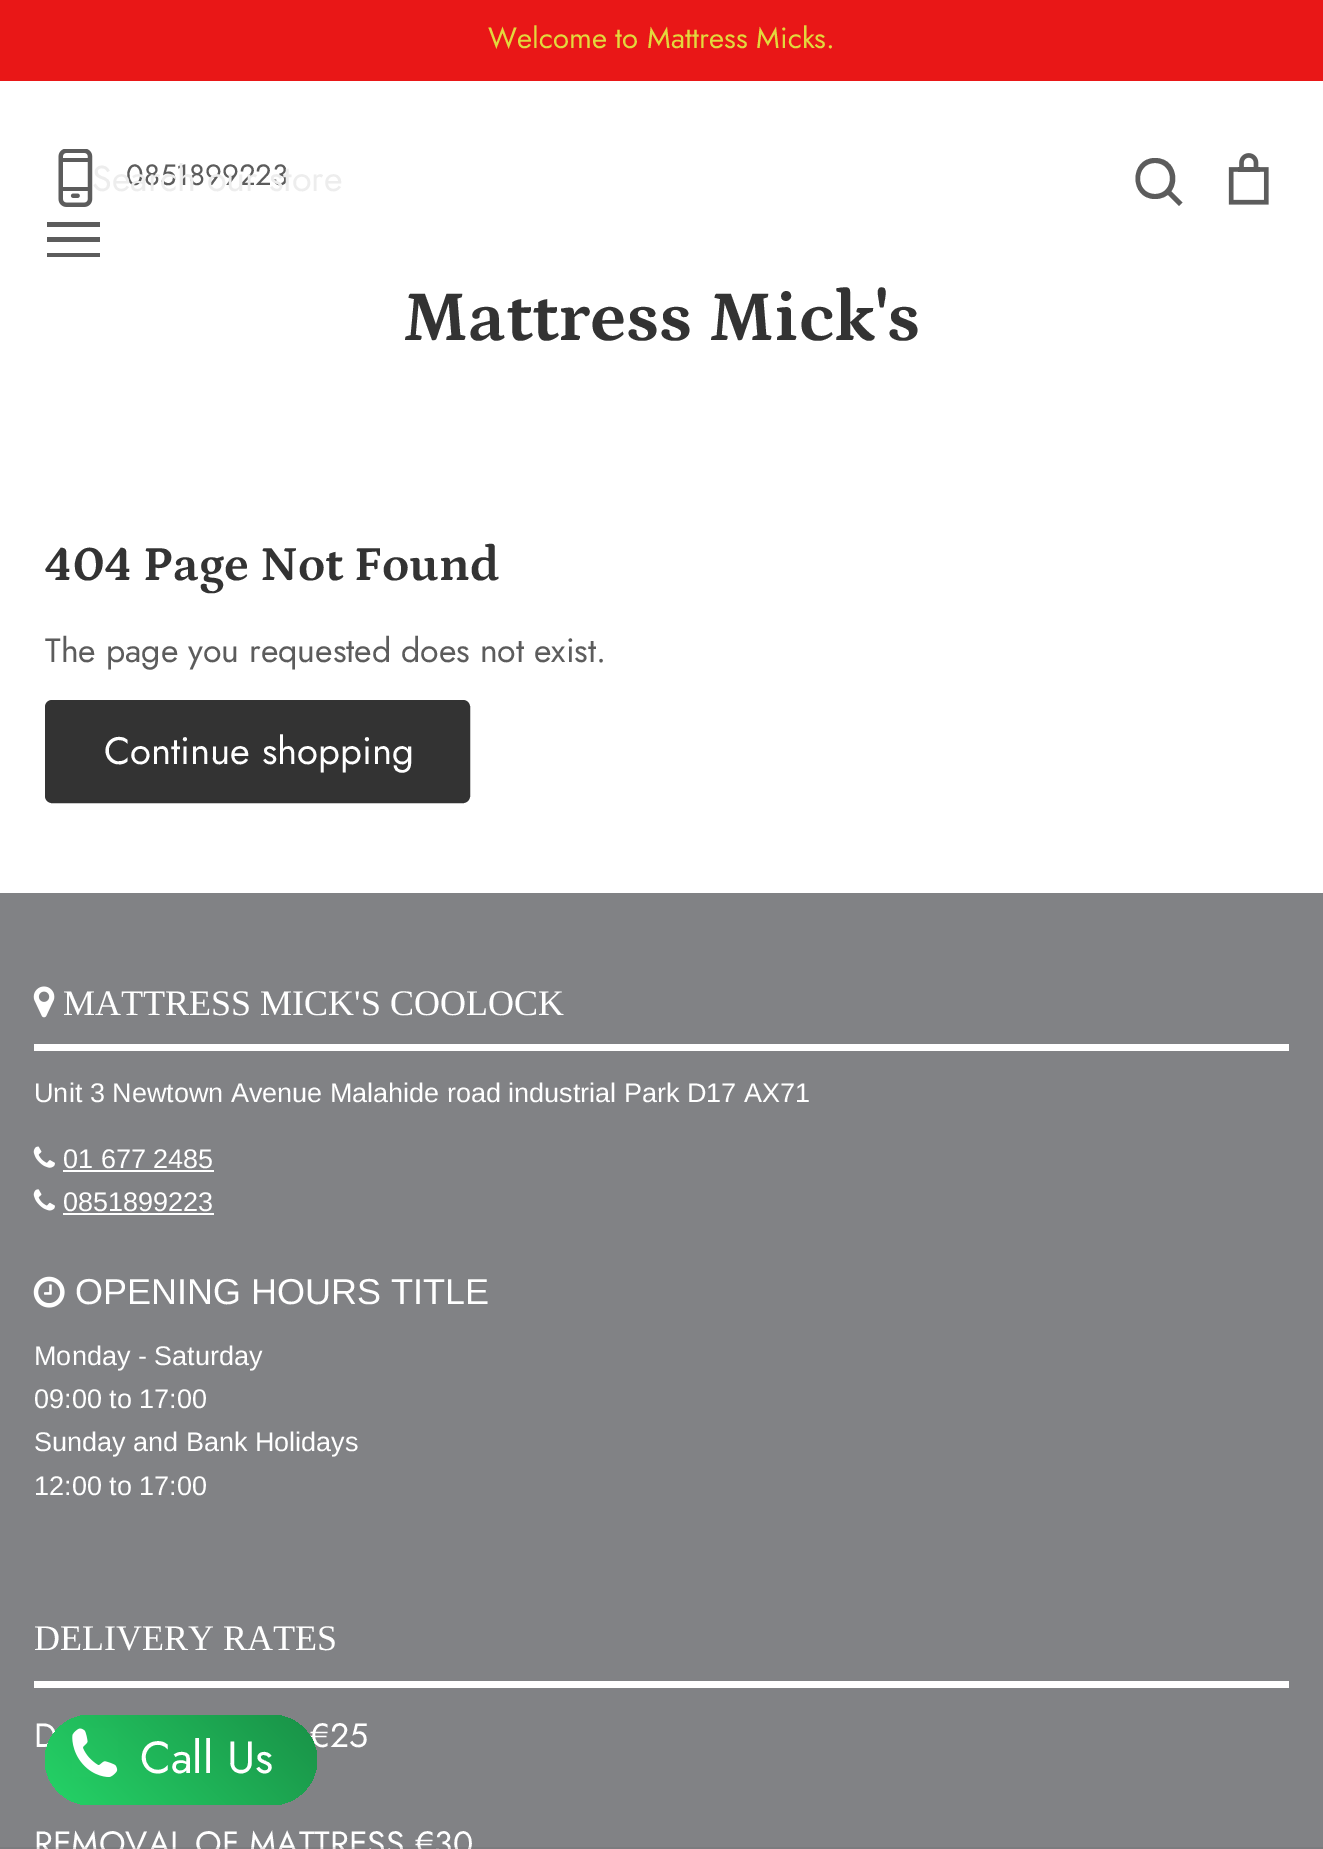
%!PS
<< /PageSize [1323 1849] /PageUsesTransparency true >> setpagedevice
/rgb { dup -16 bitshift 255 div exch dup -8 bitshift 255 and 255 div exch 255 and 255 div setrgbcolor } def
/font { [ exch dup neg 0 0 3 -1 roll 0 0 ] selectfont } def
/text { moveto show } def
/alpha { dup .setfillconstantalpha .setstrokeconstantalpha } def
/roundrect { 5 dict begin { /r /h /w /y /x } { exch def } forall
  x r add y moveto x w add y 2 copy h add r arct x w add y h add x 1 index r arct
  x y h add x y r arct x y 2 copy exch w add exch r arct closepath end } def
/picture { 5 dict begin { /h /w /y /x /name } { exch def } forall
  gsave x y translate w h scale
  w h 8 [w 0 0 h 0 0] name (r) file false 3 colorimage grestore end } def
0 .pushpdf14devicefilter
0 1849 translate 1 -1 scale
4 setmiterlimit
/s1 { /Jost-Regular 29.25 font 16#E2D83D rgb } def
/s2 { /Jost-Regular 29.25 font 16#5C5C5C rgb } def
/s3 { /Jost-Regular 36 font 16#EDEDED rgb } def
/s4 { /Petrona-Bold 72 font 16#333333 rgb } def
/s5 { /Jost-Regular 33.75 font 16#FFFFFF rgb } def
/s6 { /Petrona-Bold 49.5 font 16#333333 rgb } def
/s7 { /Jost-Regular 33.75 font 16#5C5C5C rgb } def
/s8 { /Jost-Regular 38.25 font 16#FFFFFF rgb } def
/s9 { /LiberationSerif-Regular 36 font 16#FFFFFF rgb } def
/s10 { /LiberationSans-Regular 27 font 16#FFFFFF rgb } def
/s11 { /LiberationSans-Regular 36 font 16#FFFFFF rgb } def
/s12 { /Jost-Regular 45 font 16#FFFFFF rgb } def
16#FFFFFF rgb
0 0 1323 1849 rectfill
16#E91717 rgb
0 0 1323 81 rectfill
s1
(Welcome to Mattress Micks.) 488 48 text
s2
(0851899223) 126 185 text
s3
(Search our store) 92 191 text
16#5C5C5C rgb
1182.5 202.5 moveto 1179 206 lineto 1167.5 194.5 lineto 1171 191 lineto closepath fill
1155 199 moveto 1129 199 1129 158 1155 158 curveto 1182 158 1182 199 1155 199 curveto closepath 1155 194 moveto 1175 194 1175 163 1155 163 curveto 1135 163 1135 194 1155 194 curveto closepath fill
(pic1.raw) 1228 153 41 52 picture
(pic2.raw) 58 149 35 58 picture
47 222 53 5 rectfill
47 237 53 5 rectfill
47 253 53 4 rectfill
s4
(Mattress Mick's) 402 340 text
16#818285 rgb
0 893 1323 956 rectfill
s5
(REMOVAL OF MATTRESS €30) 34 1855 text
0.15 alpha
16#5C5C5C rgb
0 1847 1323 2 rectfill
1 alpha
s6
(404 Page Not Found) 45 580 text
s7
(The page you requested does not exist.) 45 662 text
16#333333 rgb
46 701 423 101 6 roundrect gsave fill grestore
2 setlinewidth
stroke
s8
(Continue shopping) 104 764 text
(pic3.raw) 33 986 22 32 picture
s9
(MATTRESS MICK'S COOLOCK) 63 1015 text
34 1044 1255 7 rectfill
s10
(Unit 3 Newtown Avenue Malahide road industrial Park D17 AX71) 34 1102 text
(pic4.raw) 33 1146 22 22 picture
(01 677 2485) 63 1168 text
63 1170 151 2 rectfill
(pic5.raw) 33 1189 22 22 picture
(0851899223) 63 1211 text
63 1213 151 2 rectfill
(pic6.raw) 33 1276 32 32 picture
s11
(OPENING HOURS TITLE) 75 1304 text
s10
(Monday - Saturday) 34 1365 text
(09:00 to 17:00) 34 1408 text
(Sunday and Bank Holidays) 34 1451 text
(12:00 to 17:00) 34 1495 text
s9
(DELIVERY RATES) 34 1650 text
34 1681 1255 7 rectfill
s5
(D) 34 1747 text
(€25) 310 1747 text
gsave 45 1715 272 90 45 roundrect clip newpath
<< /ShadingType 2 /ColorSpace /DeviceRGB /Coords [91 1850 272 1669] /Extend [true true] /Function << /FunctionType 2 /Domain [0 1] /C0 [0.145 0.827 0.404] /C1 [0.098 0.569 0.278] /N 1 >> >> shfill grestore
(pic7.raw) 72 1728 46 49 picture
s12
(Call Us) 140 1773 text
.poppdf14devicefilter showpage
